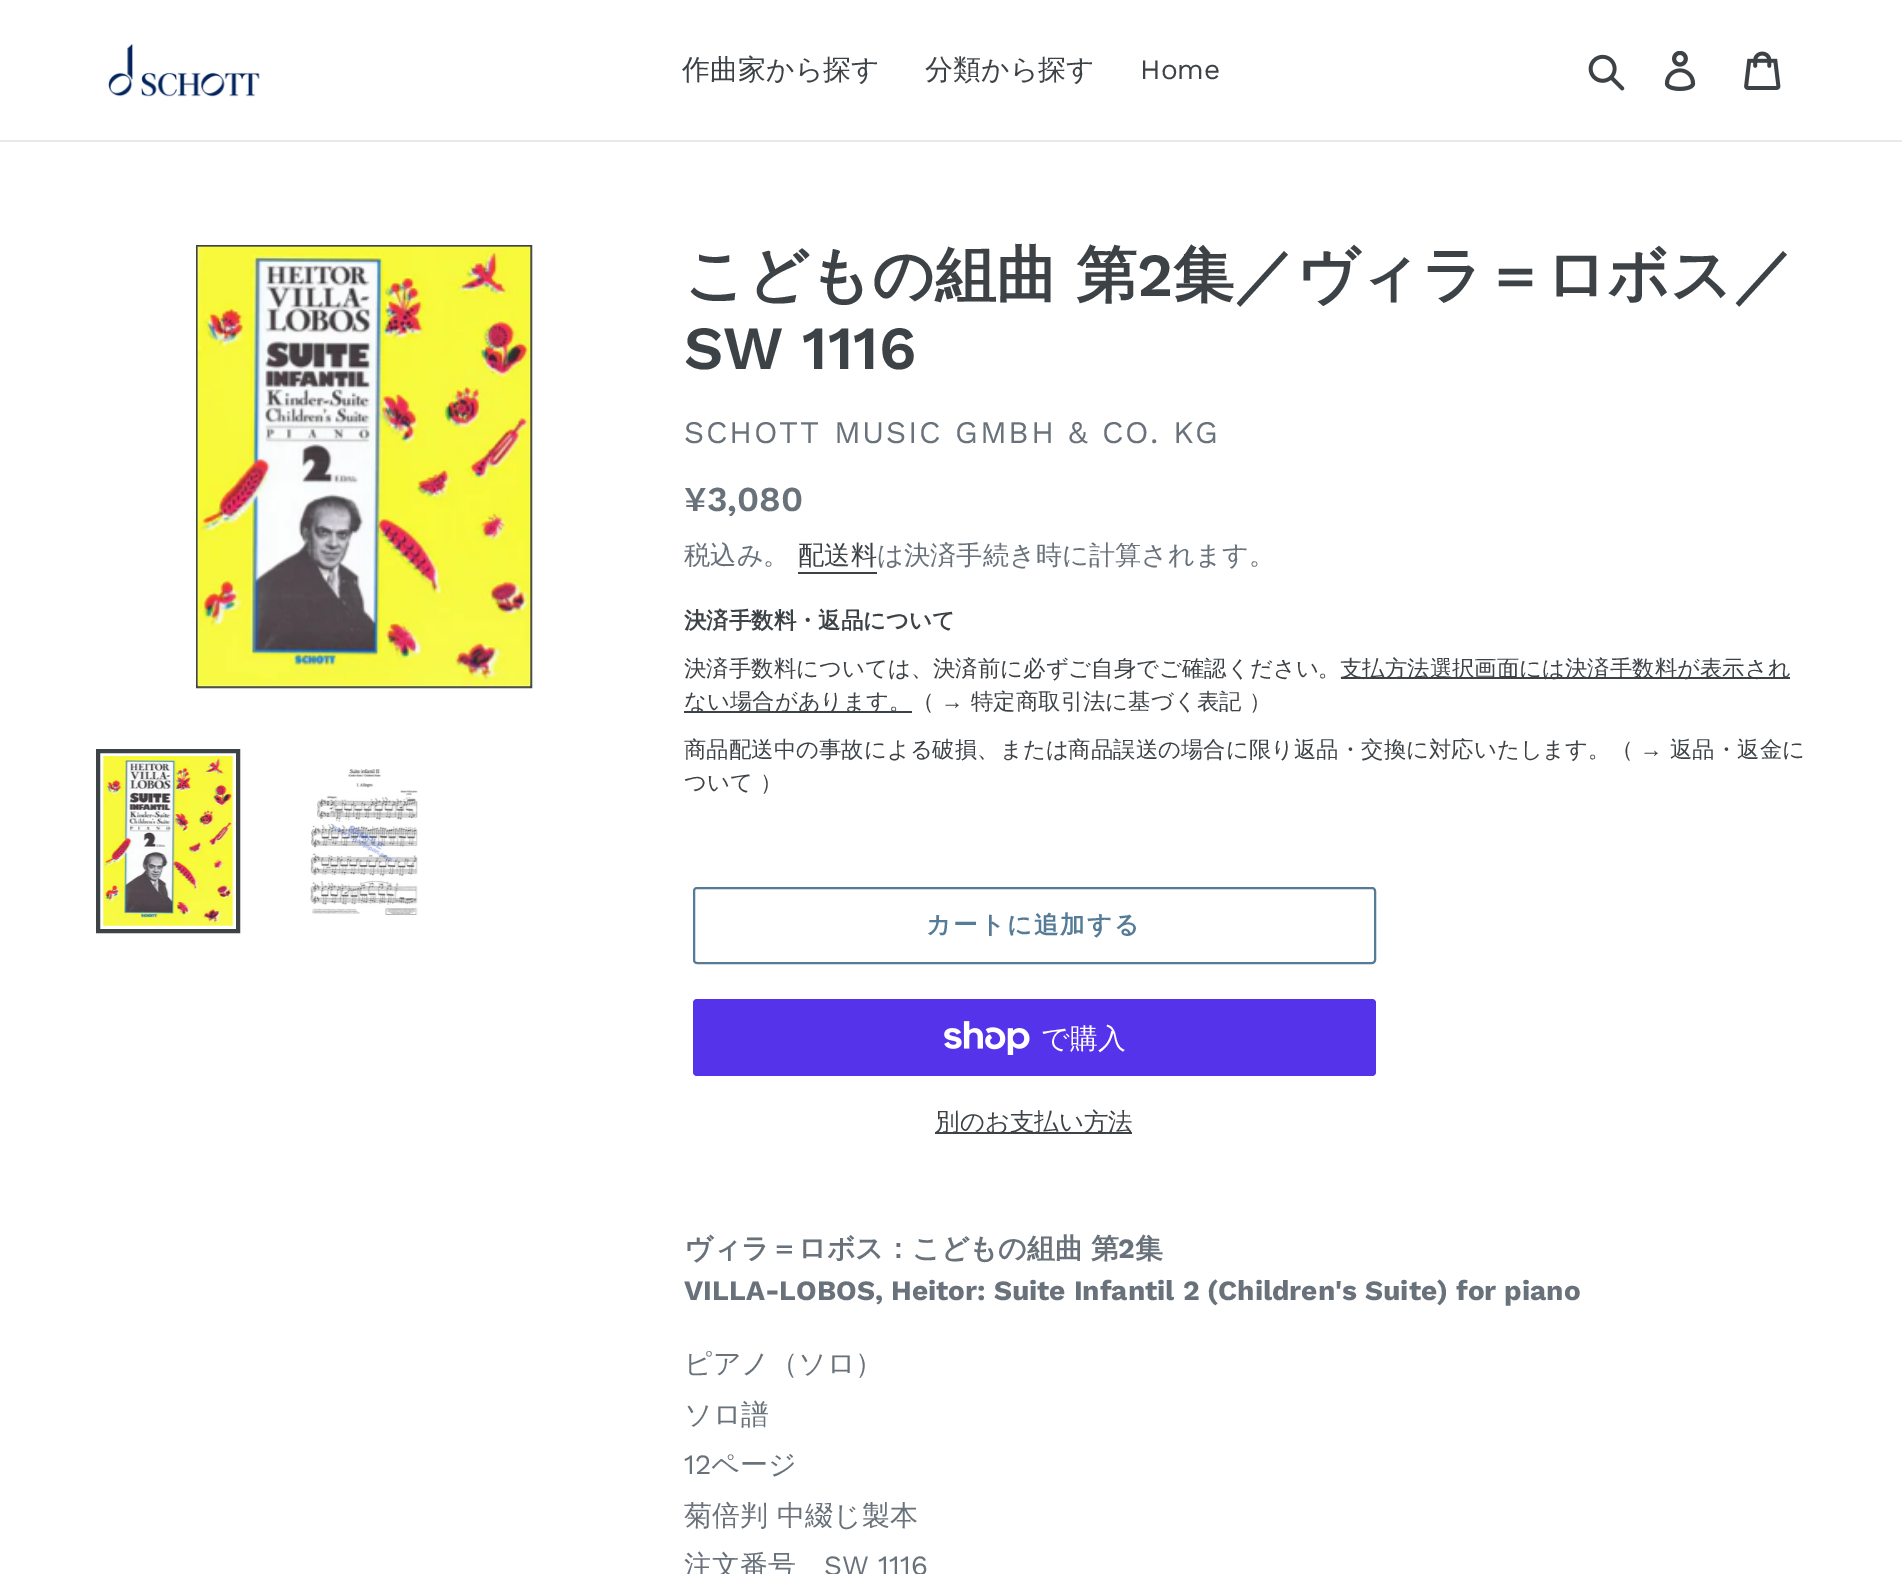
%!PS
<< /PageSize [1902 1574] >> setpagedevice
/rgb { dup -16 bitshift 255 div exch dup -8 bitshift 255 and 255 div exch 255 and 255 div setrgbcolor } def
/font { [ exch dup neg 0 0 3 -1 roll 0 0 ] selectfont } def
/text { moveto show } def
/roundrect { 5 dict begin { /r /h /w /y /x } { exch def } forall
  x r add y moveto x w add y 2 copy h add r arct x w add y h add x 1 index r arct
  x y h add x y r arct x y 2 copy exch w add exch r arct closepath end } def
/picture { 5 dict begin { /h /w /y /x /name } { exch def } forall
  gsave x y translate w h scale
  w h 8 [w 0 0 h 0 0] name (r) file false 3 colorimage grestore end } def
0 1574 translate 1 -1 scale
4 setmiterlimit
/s1 { /WenQuanYiZenHei-Medium 28 font 16#3D4246 rgb } def
/s2 { /WorkSans-Regular 28 font 16#3D4246 rgb } def
/s3 { /WenQuanYiZenHei-Bold 61.25 font 16#3D4246 rgb } def
/s4 { /WorkSans-SemiBold 61.25 font 16#3D4246 rgb } def
/s5 { /WorkSans-SemiBold 35 font 16#69727B rgb } def
/s6 { /WenQuanYiZenHei-Medium 26.25 font 16#69727B rgb } def
/s7 { /WenQuanYiZenHei-Medium 26.25 font 16#3D4246 rgb } def
/s8 { /WenQuanYiZenHei-Bold 22.4 font 16#3D4246 rgb } def
/s9 { /WenQuanYiZenHei-Medium 22.4 font 16#3D4246 rgb } def
/s10 { /LiberationSans-Regular 22.4 font 16#3D4246 rgb } def
/s11 { /WenQuanYiZenHei-Medium 28 font 16#FFFFFF rgb } def
/s12 { /WenQuanYiZenHei-Medium 24.5 font 16#3D4246 rgb } def
/s13 { /WenQuanYiZenHei-Bold 28 font 16#69727B rgb } def
/s14 { /WorkSans-Bold 28 font 16#69727B rgb } def
/s15 { /WenQuanYiZenHei-Medium 28 font 16#69727B rgb } def
/s16 { /WorkSans-Regular 28 font 16#69727B rgb } def
16#FFFFFF rgb
0 0 1902 1574 rectfill
16#E8E9EB rgb
0 140 1902 2 rectfill
(pic1.raw) 108 44 152 53 picture
s1
(作曲家から探す) 682 79 text
(分類から探す) 925 79 text
s2
(Home) 1140 79 text
(pic2.raw) 1588 54 37 37 picture
(pic3.raw) 1664 51 32 40 picture
(pic4.raw) 1744 51 37 39 picture
2 setlinewidth
197 246 334 441 rectstroke
(pic5.raw) 197 246 335 442 picture
4 setlinewidth
98 751 140 180 rectstroke
(pic6.raw) 103 756 131 170 picture
(pic7.raw) 310 769 108 146 picture
s3
(こどもの組曲 第) 684 296 text
s4
(2) 1137 296 text
s3
(集／ヴィラ＝ロボス／) 1173 296 text
s4
(SW 1116) 684 369 text
/WorkSans-Regular 31.5 font
16#69727B rgb
684 443 moveto 1.75 0 (SCHOTT MUSIC GMBH & CO. KG) ashow
s5
(¥3,080) 684 511 text
s6
(税込み。) 684 564 text
s7
(配送料) 798 564 text
798 572 79 2 rectfill
s6
(は決済手続き時に計算されます。) 877 564 text
s8
(決済手数料・返品について) 684 628 text
s9
(決済手数料については、決済前に必ずご自身でご確認ください。) 684 676 text
1341 677 449 2 rectfill
(支払方法選択画面には決済手数料が表示され) 1340 676 text
684 711 228 2 rectfill
(ない場合があります。（) 684 709 text
s10
(→) 941 709 text
s9
(特定商取引法に基づく表記) 971 709 text
(）) 1249 709 text
(商品配送中の事故による破損、または商品誤送の場合に限り返品・交換に対応いたします。（) 684 757 text
s10
(→) 1640 757 text
s9
(返品・返金に) 1670 757 text
(ついて) 684 790 text
(）) 760 790 text
16#557B97 rgb
2 setlinewidth
694 888 681 75 3 roundrect stroke
/WenQuanYiZenHei-Bold 24.5 font
926 933 moveto 2 0 (カートに追加する) ashow
16#5433EB rgb
693 999 683 77 4 roundrect fill
(pic8.raw) 944 1021 86 34 picture
s11
(で購入) 1041 1048 text
16#3D4246 rgb
935 1132 197 2 rectfill
s12
(別のお支払い方法) 935 1130 text
s13
(ヴィラ＝ロボス：こどもの組曲 第) 684 1258 text
s14
(2) 1118 1258 text
s13
(集) 1135 1258 text
s14
(VILLA-LOBOS, Heitor: Suite Infantil 2 \(Children's Suite\) for piano) 684 1300 text
s15
(ピアノ（ソロ）) 684 1373 text
(ソロ譜) 684 1424 text
s16
(12) 684 1474 text
s15
(ページ) 711 1474 text
(菊倍判) 684 1525 text
(中綴じ製本) 777 1525 text
(注文番号) 684 1575 text
s16
(SW 1116) 824 1575 text
showpage
